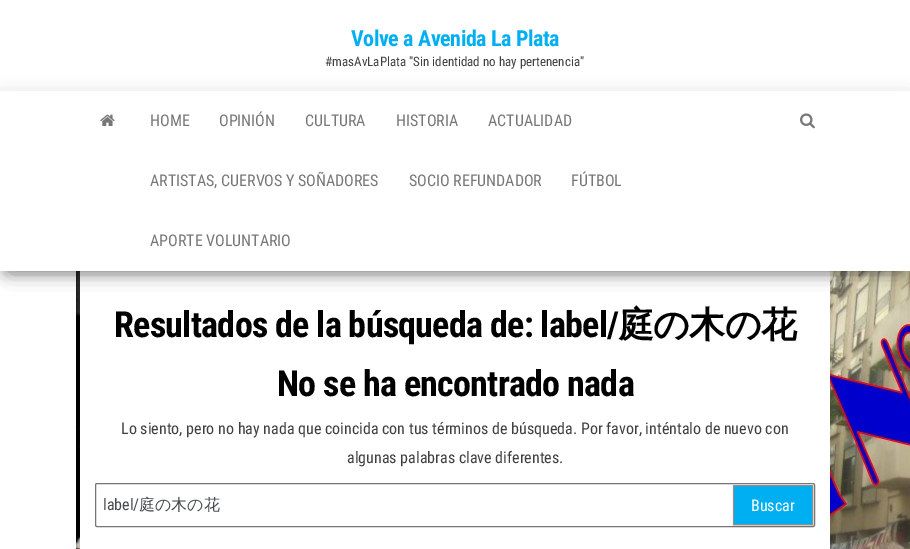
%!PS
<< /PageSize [910 549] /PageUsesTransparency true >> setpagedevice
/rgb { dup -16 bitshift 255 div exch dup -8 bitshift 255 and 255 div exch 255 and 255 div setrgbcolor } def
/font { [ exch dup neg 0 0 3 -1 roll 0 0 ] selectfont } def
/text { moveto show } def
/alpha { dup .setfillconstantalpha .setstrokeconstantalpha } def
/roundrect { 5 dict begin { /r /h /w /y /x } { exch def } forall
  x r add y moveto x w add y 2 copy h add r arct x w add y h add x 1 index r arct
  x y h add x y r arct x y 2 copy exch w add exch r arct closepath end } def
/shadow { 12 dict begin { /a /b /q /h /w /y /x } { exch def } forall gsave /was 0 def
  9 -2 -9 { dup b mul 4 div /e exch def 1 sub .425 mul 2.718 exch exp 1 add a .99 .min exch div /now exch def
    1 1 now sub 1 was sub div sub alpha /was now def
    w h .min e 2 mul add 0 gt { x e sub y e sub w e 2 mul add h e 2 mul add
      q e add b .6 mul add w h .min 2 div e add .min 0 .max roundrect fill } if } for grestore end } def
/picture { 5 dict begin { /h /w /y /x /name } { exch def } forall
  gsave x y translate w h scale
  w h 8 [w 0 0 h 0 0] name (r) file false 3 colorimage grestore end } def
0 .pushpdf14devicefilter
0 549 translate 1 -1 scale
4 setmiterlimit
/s1 { /RobotoCondensed-Regular 13 font 16#404040 rgb } def
/s2 { /RobotoCondensed-Regular 16 font 16#777777 rgb } def
/s3 { /RobotoCondensed-Regular 16 font 16#404040 rgb } def
/s4 { /RobotoCondensed-Regular 16 font 16#464A4C rgb } def
/s5 { /WenQuanYiZenHei-Medium 16 font 16#464A4C rgb } def
/s6 { /RobotoCondensed-Regular 16 font 16#FFFFFF rgb } def
16#FFFFFF rgb
0 0 910 549 rectfill
(pic1.raw) 66 271 844 278 picture
/RobotoCondensed-Bold 22 font
16#00AFF2 rgb
351 46 moveto -0.4 0 (Volve a Avenida La Plata) ashow
16#FFFFFF rgb
80 271 750 278 rectfill
16#000000 rgb
0 94 910 180 0 10 0.12 shadow
s1
(#masAvLaPlata "Sin identidad no hay pertenencia") 325 66 text
16#000000 rgb
5 104 900 170 0 5 0.2 shadow
12 113 886 156 0 10 0.42 shadow
16#FFFFFF rgb
0 91 910 180 rectfill
(pic2.raw) 100 114 15 12 picture
s2
(HOME) 150 126 text
(OPINIÓN) 219 126 text
(CULTURA) 305 126 text
(HISTORIA) 396 126 text
(ACTUALIDAD) 488 126 text
(ARTISTAS, CUERVOS Y SOÑADORES) 150 186 text
(SOCIO REFUNDADOR) 409 186 text
(FÚTBOL) 571 186 text
(APORTE VOLUNTARIO) 150 246 text
(pic3.raw) 800 113 15 16 picture
/RobotoCondensed-Bold 36 font
16#000000 rgb
114 337 moveto -0.7 0 (Resultados de la búsqueda de: label/) ashow
/WenQuanYiZenHei-Bold 36 font
618 337 moveto -0.7 0 (庭の木の花) ashow
/RobotoCondensed-Bold 36 font
277 396 moveto -0.7 0 (No se ha encontrado nada) ashow
s3
(Lo siento, pero no hay nada que coincida con tus términos de búsqueda. Por favor, inténtalo de nuevo con) 121 434 text
(algunas palabras clave diferentes.) 347 463 text
16#767676 rgb
95.5 483.5 719 43 1.5 roundrect stroke
s4
(label/) 103 510 text
s5
(庭の木の花) 139 510 text
16#000000 rgb
733 486 80 40 0 1 0.15 shadow
16#00AFF2 rgb
733.5 485.5 moveto 812.5 485.5 lineto 812.5 524.5 lineto 733.5 524.5 lineto closepath gsave fill grestore
16#8E8E8E rgb
stroke
s6
(Buscar) 751 511 text
.poppdf14devicefilter showpage
